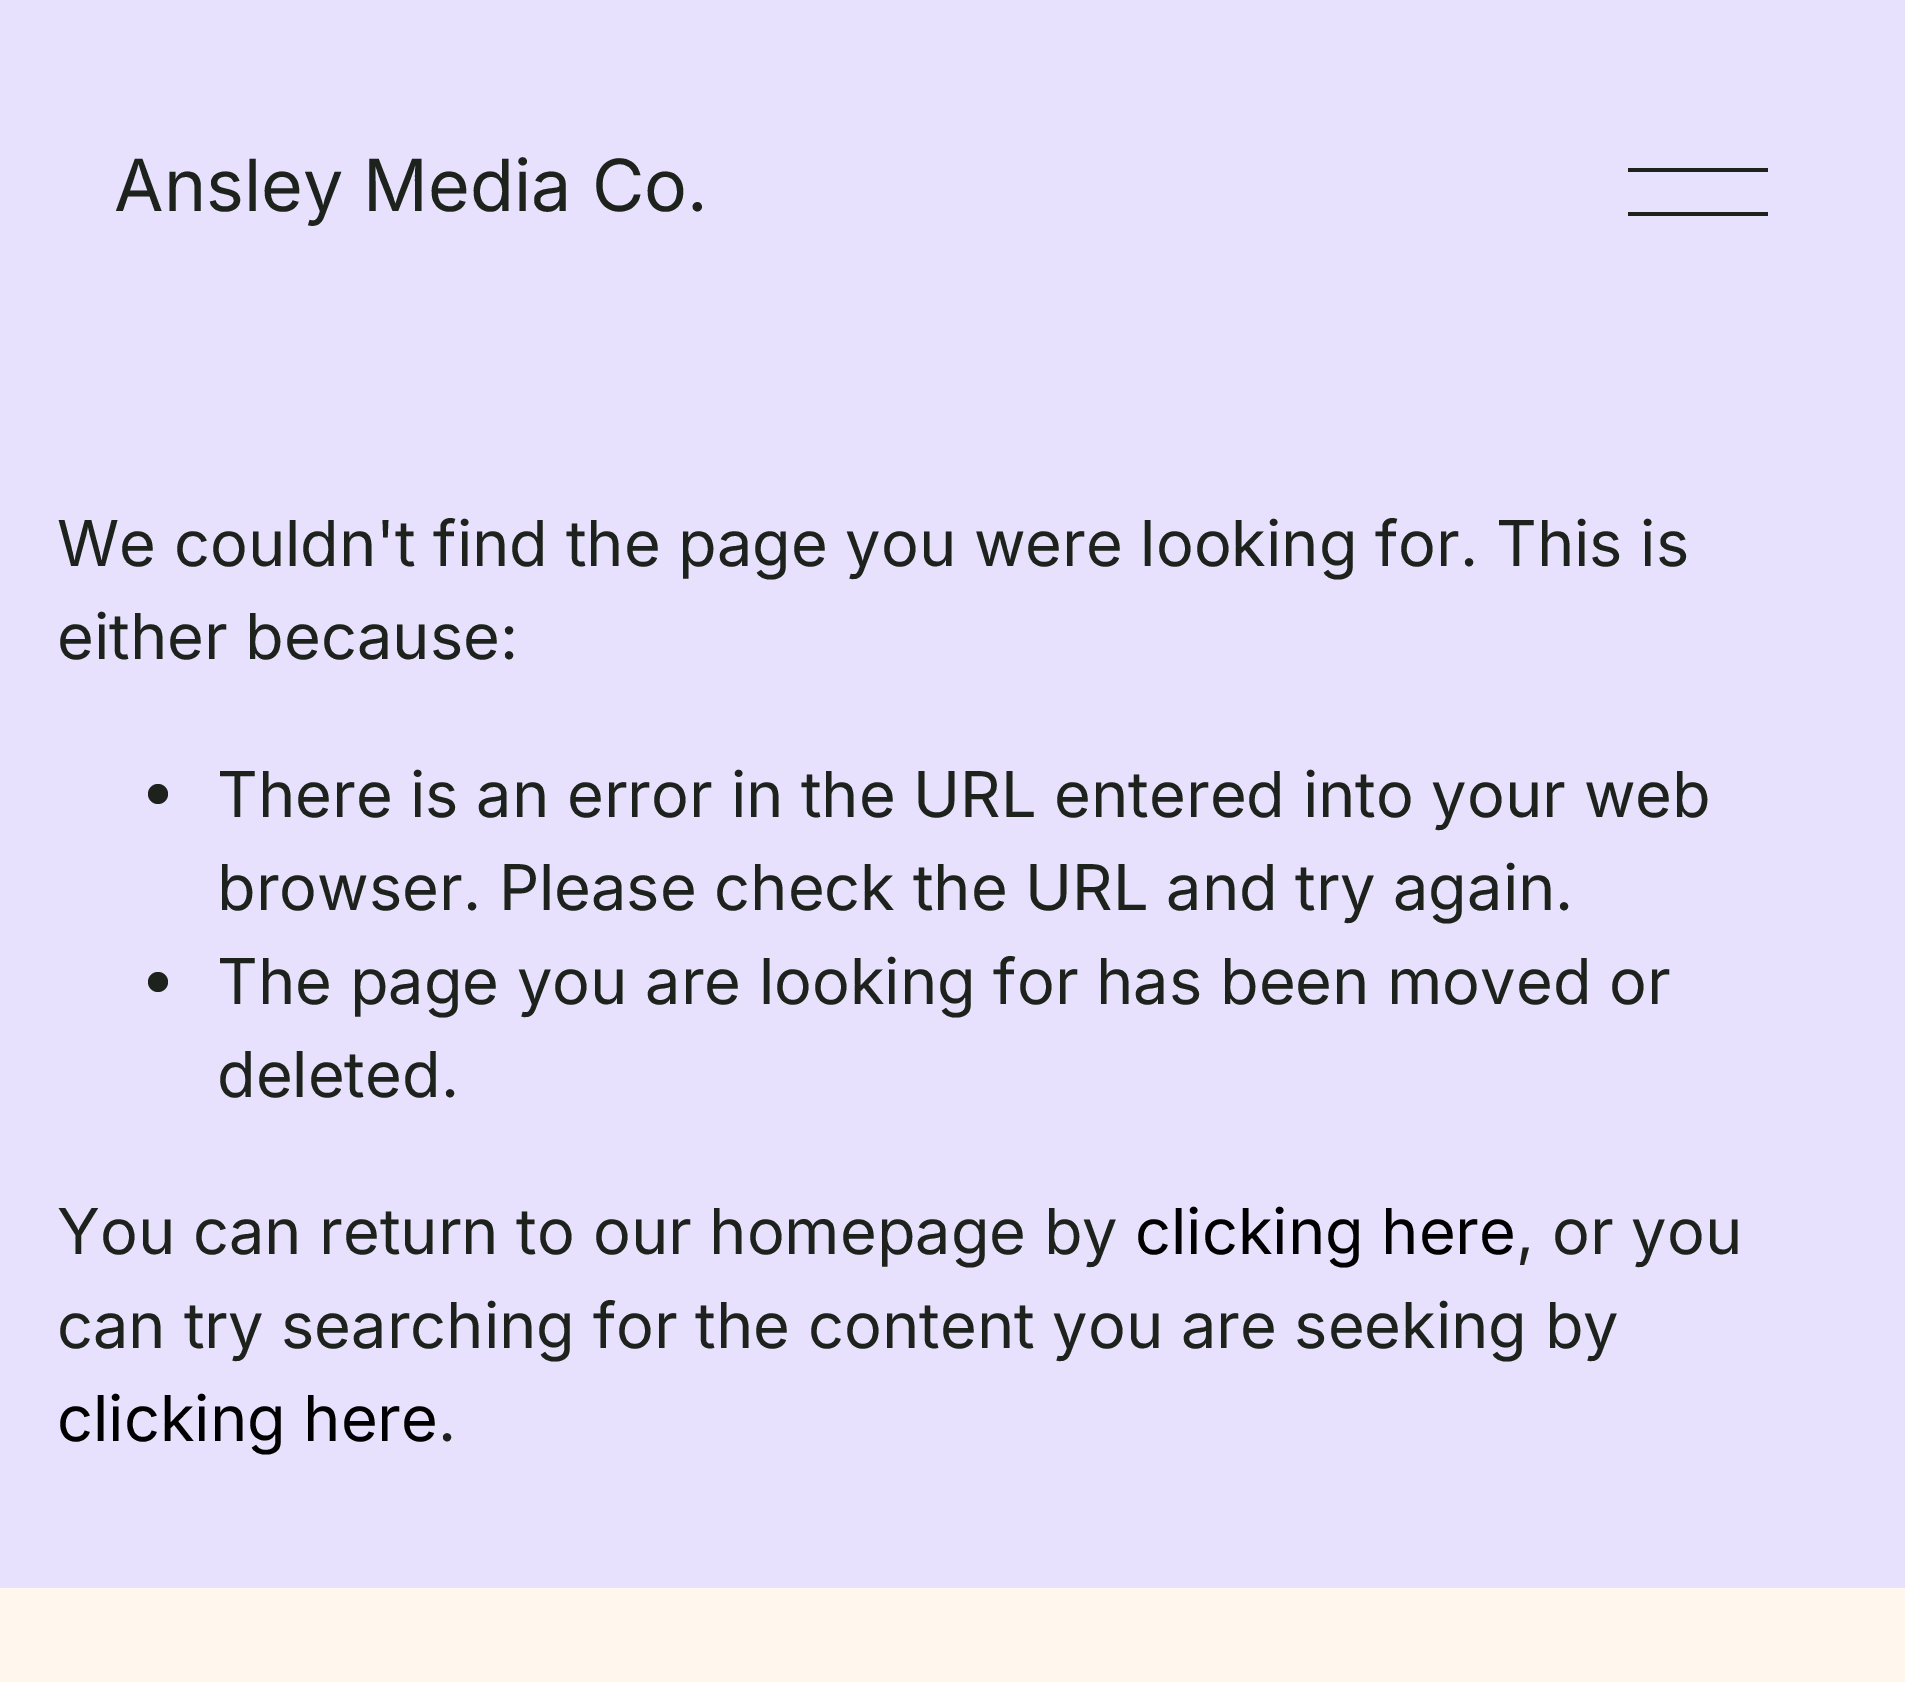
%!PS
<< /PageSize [1905 1682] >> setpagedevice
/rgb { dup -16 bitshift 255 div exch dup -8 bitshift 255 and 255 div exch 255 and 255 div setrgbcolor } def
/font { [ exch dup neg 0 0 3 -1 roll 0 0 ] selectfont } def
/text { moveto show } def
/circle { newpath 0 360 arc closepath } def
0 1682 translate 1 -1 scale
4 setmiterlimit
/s1 { /Inter-Regular 71.75 font 16#1D231C rgb } def
/s2 { /Inter-Regular 63.1 font 16#1D231C rgb } def
/s3 { /Inter-Regular 63.1 font 16#000000 rgb } def
16#E8E1FD rgb
0 0 1905 1682 rectfill
s1
(Ansley Media Co.) 114 211 text
1628 168 140 4 rectfill
1628 212 140 4 rectfill
s2
(We couldn't find the page you were looking for. This is) 57 566 text
(either because:) 57 659 text
158 794 10 circle fill
(There is an error in the URL entered into your web) 217 817 text
(browser. Please check the URL and try again.) 217 910 text
158 982 10 circle fill
(The page you are looking for has been moved or) 217 1004 text
(deleted.) 217 1097 text
(You can return to our homepage by) 57 1254 text
s3
(clicking here) 1135 1254 text
s2
(, or you) 1516 1254 text
(can try searching for the) 57 1348 text
(content you are seeking by) 808 1348 text
s3
(clicking here) 57 1441 text
s2
(.) 438 1441 text
16#FFF6ED rgb
0 1588 1905 94 rectfill
showpage
